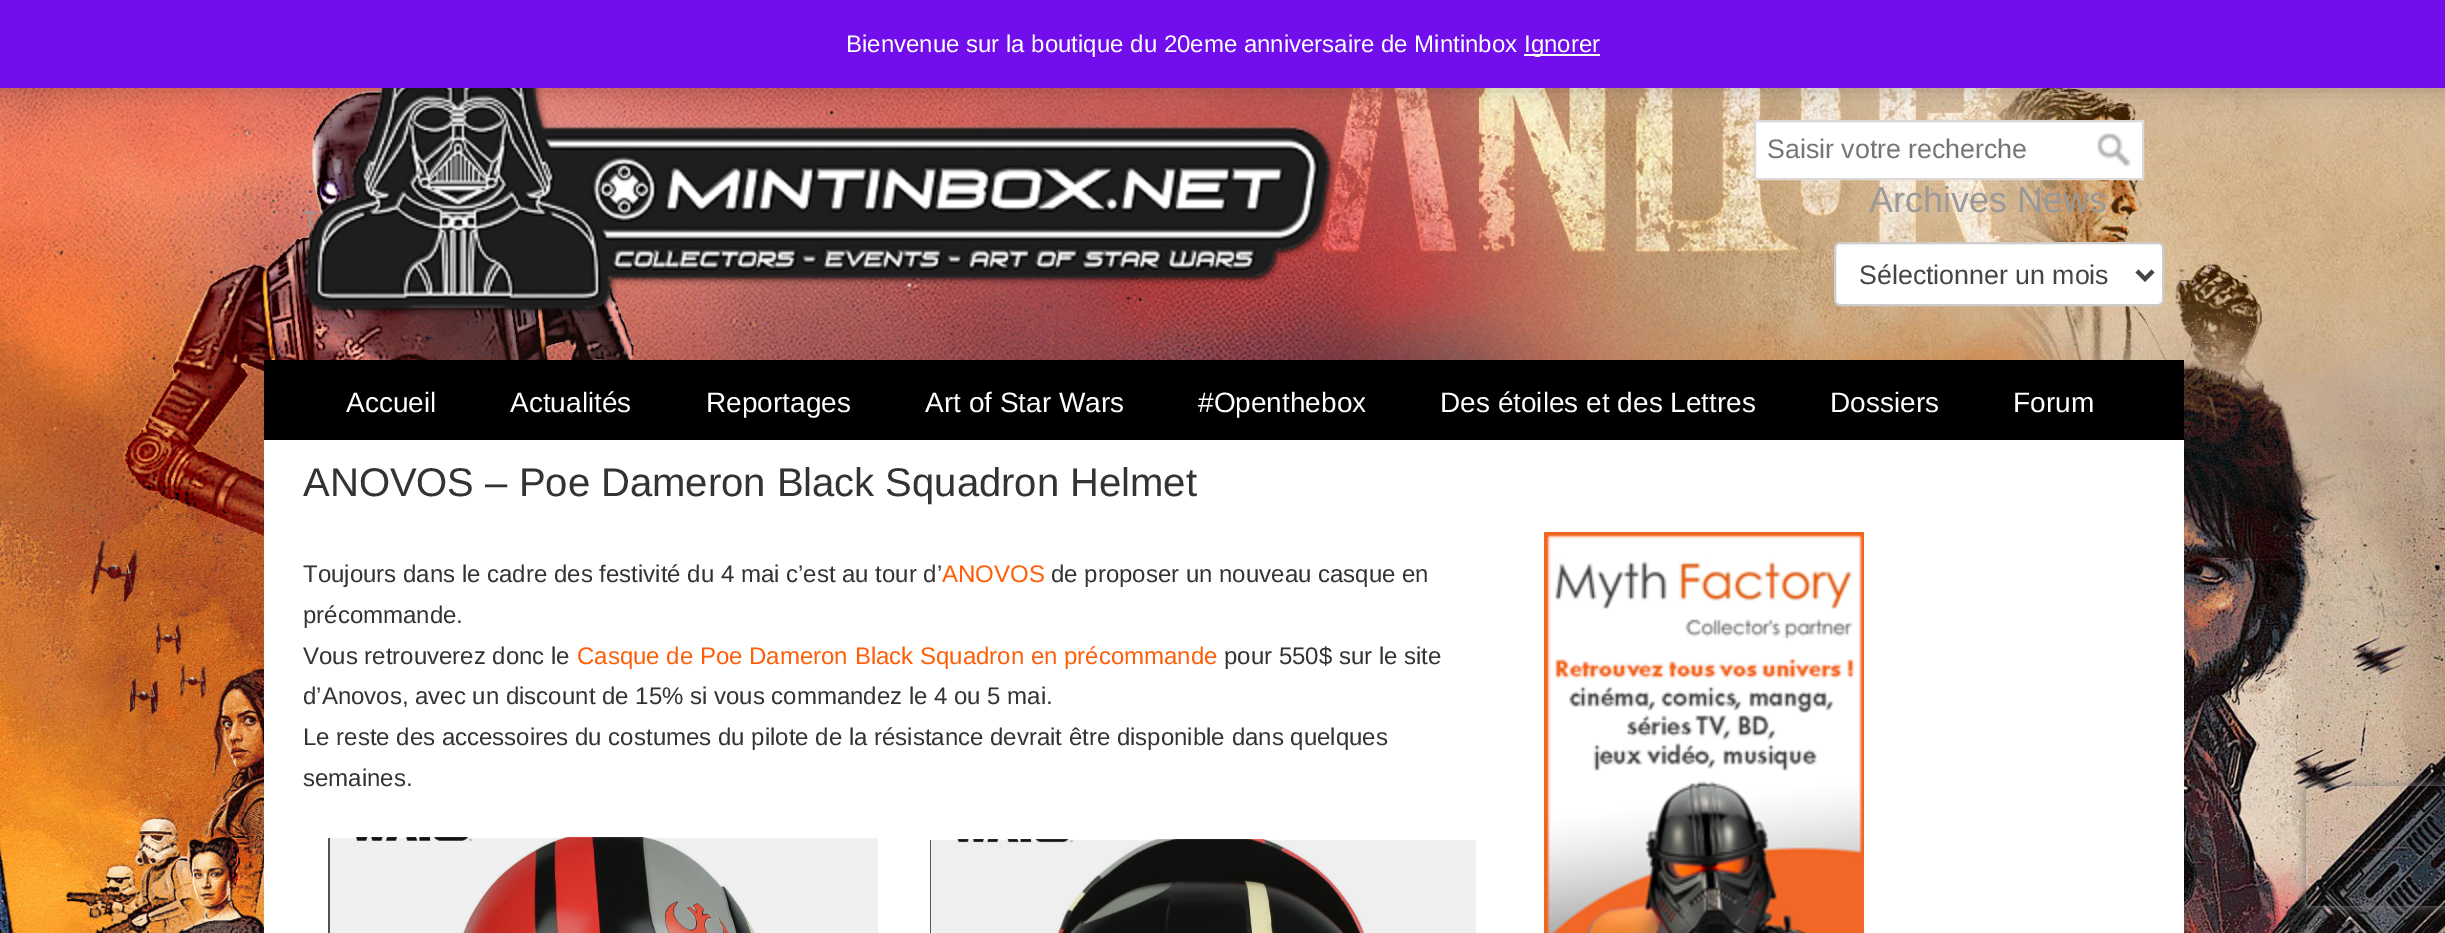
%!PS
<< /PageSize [2445 933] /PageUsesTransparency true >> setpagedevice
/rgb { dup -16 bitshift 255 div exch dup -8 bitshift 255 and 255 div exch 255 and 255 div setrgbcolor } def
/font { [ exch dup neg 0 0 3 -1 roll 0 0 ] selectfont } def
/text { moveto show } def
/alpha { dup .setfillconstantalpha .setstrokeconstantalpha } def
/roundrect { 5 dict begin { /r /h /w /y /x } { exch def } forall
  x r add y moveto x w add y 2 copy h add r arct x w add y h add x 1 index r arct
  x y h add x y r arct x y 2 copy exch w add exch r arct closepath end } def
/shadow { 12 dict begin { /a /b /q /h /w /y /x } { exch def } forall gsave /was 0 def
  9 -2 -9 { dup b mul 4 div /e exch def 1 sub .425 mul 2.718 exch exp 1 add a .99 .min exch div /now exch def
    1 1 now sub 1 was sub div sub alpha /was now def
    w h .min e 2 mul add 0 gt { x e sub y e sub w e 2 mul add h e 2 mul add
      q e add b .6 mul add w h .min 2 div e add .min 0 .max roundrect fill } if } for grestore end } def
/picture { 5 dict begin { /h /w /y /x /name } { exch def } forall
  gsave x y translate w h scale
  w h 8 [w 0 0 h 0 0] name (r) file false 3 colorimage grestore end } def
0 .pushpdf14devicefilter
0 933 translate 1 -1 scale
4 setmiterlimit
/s1 { /LiberationSans-Regular 24 font 16#999999 rgb } def
/s2 { /LiberationSans-Regular 24 font 16#FFFFFF rgb } def
/s3 { /LiberationSans-Regular 26.75 font 16#757575 rgb } def
/s4 { /LiberationSans-Regular 36 font 16#999999 rgb } def
/s5 { /LiberationSans-Regular 26.75 font 16#454545 rgb } def
/s6 { /LiberationSans-Regular 28 font 16#FFFFFF rgb } def
/s7 { /LiberationSans-Regular 40 font 16#333333 rgb } def
/s8 { /LiberationSans-Regular 24 font 16#333333 rgb } def
/s9 { /LiberationSans-Regular 24 font 16#FE5E08 rgb } def
16#FFFFFF rgb
0 0 2445 933 rectfill
(pic1.raw) 0 88 2445 845 picture
s1
(T) 303 228 text
(pic2.raw) 304 88 1030 226 picture
16#FFFFFF rgb
1755 121 moveto 2143 121 lineto 2143 179 lineto 1755 179 lineto closepath gsave fill grestore
16#DDD9D9 rgb
2 setlinewidth
stroke
16#000000 rgb
0 2 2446 88 0 12 0.2 shadow
16#720EEC rgb
0 0 2445 88 rectfill
s2
(Bienvenue sur la boutique du 20eme anniversaire de Mintinbox) 846 52 text
16#FCFBFE rgb
1524 54 76 2 rectfill
s2
(Ignorer) 1524 52 text
s3
(Saisir votre recherche) 1767 158 text
(pic3.raw) 2097 133 34 33 picture
s4
(Archives News) 1869 212 text
16#FFFFFF rgb
1835 243 328 62 5 roundrect gsave fill grestore
16#CCCCCC rgb
stroke
16#454545 rgb
4 setlinewidth
2137 271 moveto 2145 279 lineto 2153 271 lineto stroke
s5
(Sélectionner un mois) 1859 284 text
16#000000 rgb
264 360 1920 80 rectfill
s6
(Accueil) 346 412 text
(Actualités) 510 412 text
(Reportages) 706 412 text
(Art of Star Wars) 925 412 text
(#Openthebox) 1198 412 text
(Des étoiles et des Lettres) 1440 412 text
(Dossiers) 1830 412 text
(Forum) 2013 412 text
264 440 1920 493 rectfill
s7
(ANOVOS – Poe Dameron Black Squadron Helmet) 303 496 text
s8
(Toujours dans le cadre des festivité du 4 mai c’est au tour d’) 303 582 text
s9
(ANOVOS) 942 582 text
s8
(de proposer un nouveau casque en) 1051 582 text
(précommande.) 303 623 text
(Vous retrouverez donc le) 303 664 text
s9
(Casque de Poe Dameron Black Squadron en précommande) 577 664 text
s8
(pour 550$ sur le site) 1224 664 text
(d’Anovos, avec un discount de 15% si vous commandez le 4 ou 5 mai.) 303 704 text
(Le reste des accessoires du costumes du pilote de la résistance devrait être disponible dans quelques) 303 745 text
(semaines.) 303 786 text
16#4F5259 rgb
328 838 550 95 rectfill
(pic4.raw) 330 837 548 96 picture
16#51535B rgb
930 840 546 93 rectfill
(pic5.raw) 931 839 545 94 picture
(pic6.raw) 1544 532 320 401 picture
gsave
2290 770 moveto 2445 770 lineto 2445 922 lineto 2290 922 lineto closepath 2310 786 moveto 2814 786 lineto 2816 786 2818 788 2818 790 curveto 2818 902 lineto 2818 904 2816 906 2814 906 curveto 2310 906 lineto 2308 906 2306 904 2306 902 curveto 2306 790 lineto 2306 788 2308 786 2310 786 curveto closepath eoclip newpath
16#808080 rgb
2306 786 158 120 4 5 1 shadow
grestore
.poppdf14devicefilter showpage
